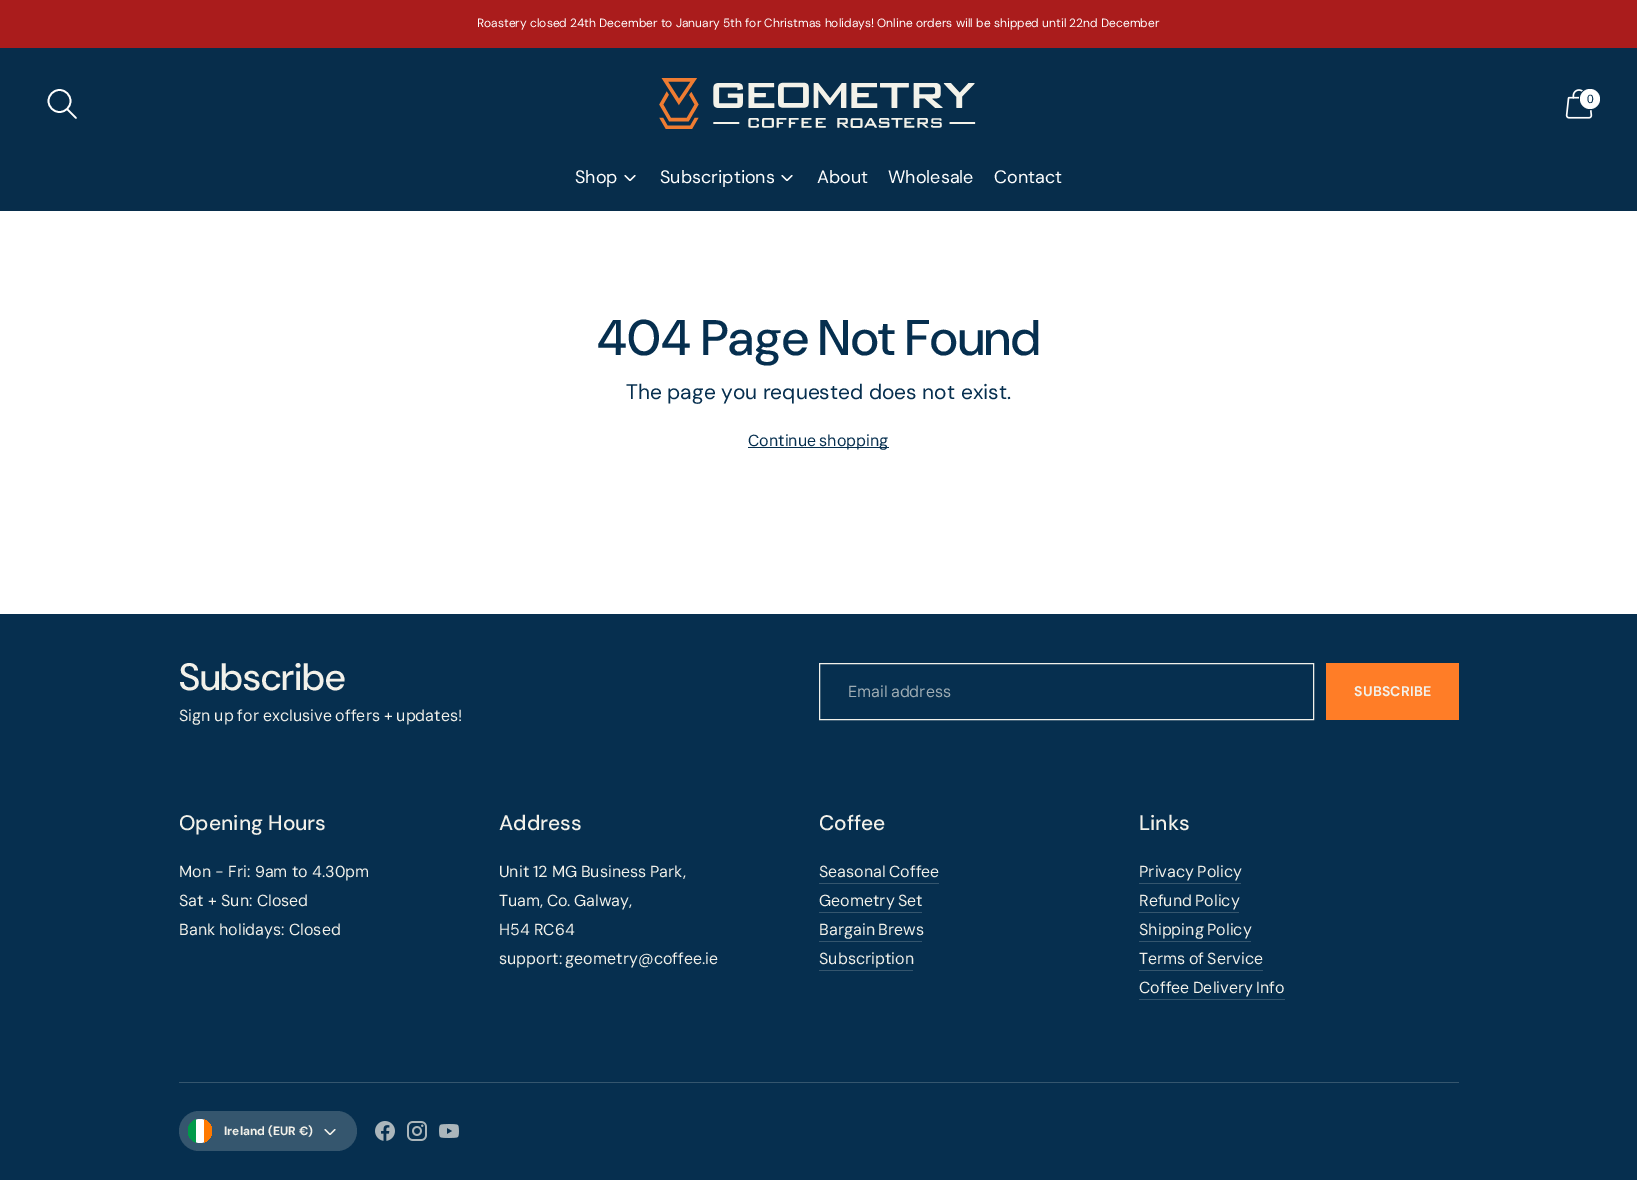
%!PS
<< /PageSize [1637 1180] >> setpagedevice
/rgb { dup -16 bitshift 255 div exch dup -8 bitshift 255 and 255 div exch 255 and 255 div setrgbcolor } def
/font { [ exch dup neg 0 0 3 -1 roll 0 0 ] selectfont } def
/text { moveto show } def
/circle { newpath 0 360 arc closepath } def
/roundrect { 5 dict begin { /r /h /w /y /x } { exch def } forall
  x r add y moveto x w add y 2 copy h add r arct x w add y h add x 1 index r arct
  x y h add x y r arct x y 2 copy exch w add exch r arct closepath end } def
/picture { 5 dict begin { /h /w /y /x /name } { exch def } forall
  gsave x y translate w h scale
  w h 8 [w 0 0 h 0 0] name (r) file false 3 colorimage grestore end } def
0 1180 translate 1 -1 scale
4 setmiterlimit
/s1 { /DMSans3-Regular 12 font 16#FFFFFF rgb } def
/s2 { /LiberationSans-Regular 12 font 16#062F4F rgb } def
/s3 { /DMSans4-Regular 18 font 16#FFFFFF rgb } def
/s4 { /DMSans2-Medium 50 font 16#062F4F rgb } def
/s5 { /DMSans2-Regular 21 font 16#062F4F rgb } def
/s6 { /DMSans3-Medium 38 font 16#F2F1EA rgb } def
/s7 { /DMSans-Medium 21 font 16#F2F1EA rgb } def
/s8 { /DMSans-Regular 16 font 16#F2F1EA rgb } def
/s9 { /DMSans2-Bold 12 font 16#F2F1EA rgb } def
16#FFFFFF rgb
0 0 1637 1180 rectfill
16#AA1C1C rgb
0 0 1637 48 rectfill
s1
(Roastery closed 24th December to January 5th for Christmas holidays! Online orders will be shipped until 22nd December) 477 27 text
16#072D4B rgb
0 48 1637 163 rectfill
16#FFFFFF rgb
1.7 setlinewidth
59.5 101 11 circle stroke
1 setlinecap
1 setlinejoin
67.5 109.5 moveto 76 118 lineto stroke
(pic1.raw) 659 78 317 51 picture
(pic2.raw) 1565 89 28 30 picture
16#072D4B rgb
1 setlinewidth
0 setlinecap
0 setlinejoin
1590 99 10.5 circle stroke
16#FFFFFF rgb
1590 99 10 circle fill
s2
(0) 1587 103 text
s3
(Shop) 575 183 text
1.2 setlinewidth
1 setlinecap
1 setlinejoin
625 175.5 moveto 630 180.5 lineto 635 175.5 lineto stroke
(Subscriptions) 660 183 text
782 175.5 moveto 787 180.5 lineto 792 175.5 lineto stroke
(About) 817 183 text
(Wholesale) 888 183 text
(Contact) 994 183 text
s4
(404 Page Not Found) 597 355 text
s5
(The page you requested does not exist.) 626 399 text
748 447 141 1 rectfill
/DMSans-Regular 16 font
748 446 moveto -1 0 32 (Continue shopping) widthshow
0 614 1637 566 rectfill
s6
(Subscribe) 179 690 text
/DMSans-Regular 16 font
179 721 moveto -0.5 0 32 (Sign up for exclusive offers + updates!) widthshow
1 setlinewidth
0 setlinecap
0 setlinejoin
819.5 663.5 494 56 rectstroke
16#9FADB4 rgb
848 697 moveto -1 0 32 (Email address) widthshow
16#FF7D27 rgb
1326 663 133 57 rectfill
/DMSans-Bold 14 font
16#F2F1EA rgb
1354 696 moveto 0.25 0 (SUBSCRIBE) ashow
s7
(Opening Hours) 179 830 text
s8
(Mon - Fri: 9am to 4.30pm) 179 877 text
(Sat + Sun: Closed) 179 906 text
(Bank holidays: Closed) 179 935 text
s7
(Address) 499 830 text
/DMSans-Regular 16 font
499 877 moveto -0.5 0 32 (Unit 12 MG Business Park,) widthshow
499 906 moveto -1 0 32 (Tuam, Co. Galway,) widthshow
(H54 RC64) 499 935 text
499 964 moveto -1 0 32 (support: geometry@coffee.ie) widthshow
s7
(Coffee) 819 830 text
/DMSans-Regular 16 font
819 877 moveto -1 0 32 (Seasonal Coffee) widthshow
16#35566E rgb
819 883 120 1 rectfill
16#F2F1EA rgb
819 906 moveto -1 0 32 (Geometry Set) widthshow
16#35566E rgb
819 912 103 1 rectfill
16#F2F1EA rgb
819 935 moveto -1 0 32 (Bargain Brews) widthshow
16#35566E rgb
819 941 103 1 rectfill
s8
(Subscription) 819 964 text
16#35566E rgb
819 970 94 1 rectfill
s7
(Links) 1139 830 text
/DMSans-Regular 16 font
1139 877 moveto -1 0 32 (Privacy Policy) widthshow
16#35566E rgb
1139 883 102 1 rectfill
16#F2F1EA rgb
1139 906 moveto -1 0 32 (Refund Policy) widthshow
16#35566E rgb
1139 912 100 1 rectfill
16#F2F1EA rgb
1139 935 moveto -1 0 32 (Shipping Policy) widthshow
16#35566E rgb
1139 941 112 1 rectfill
16#F2F1EA rgb
1139 964 moveto -1 0 32 (Terms of Service) widthshow
16#35566E rgb
1139 970 124 1 rectfill
16#F2F1EA rgb
1139 993 moveto -1 0 32 (Coffee Delivery Info) widthshow
16#35566E rgb
1139 999 146 1 rectfill
179 1082 1280 1 rectfill
179 1111 178 40 20 roundrect fill
16#FFFFFF rgb
200 1131 12 circle fill
gsave
188 1119 24 24 12 roundrect clip newpath
16#009A49 rgb
188 1119 8 24 rectfill
16#FF7900 rgb
204 1119 8 24 rectfill
grestore
s9
(Ireland \(EUR €\)) 224 1135 text
1.2 setlinewidth
1 setlinecap
1 setlinejoin
325 1129.5 moveto 330 1134.5 lineto 335 1129.5 lineto stroke
(pic3.raw) 375 1121 20 20 picture
(pic4.raw) 407 1121 20 20 picture
(pic5.raw) 439 1124 20 14 picture
showpage
